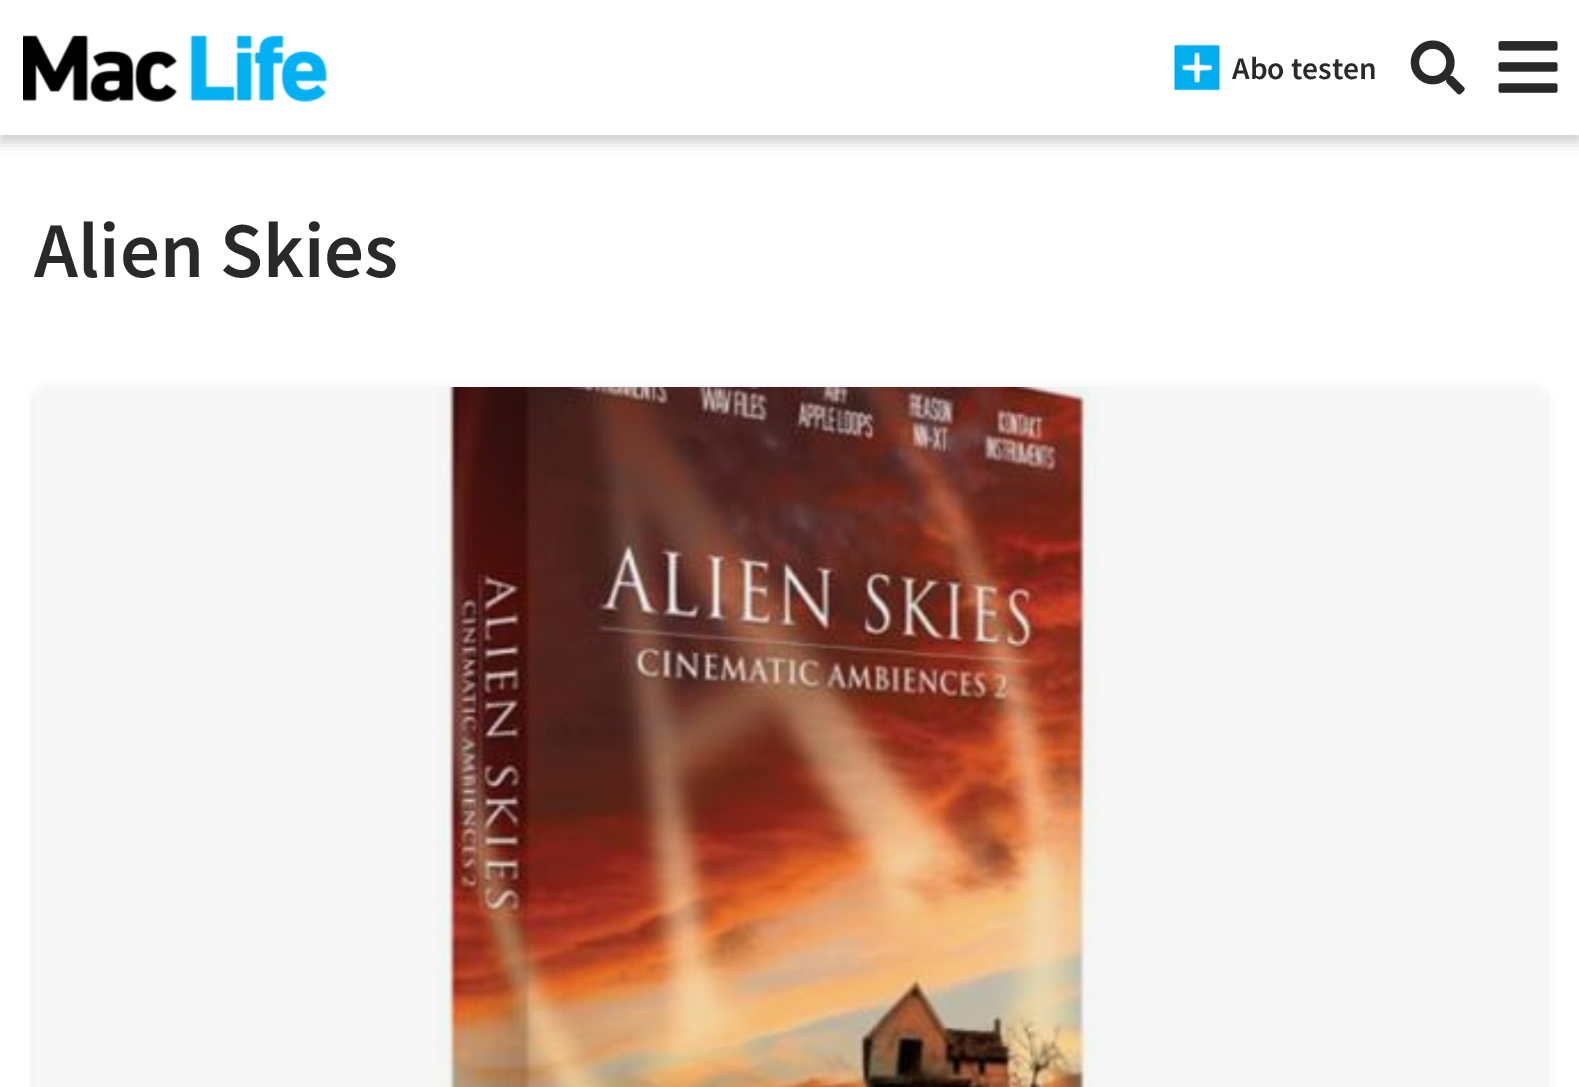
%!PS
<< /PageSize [1579 1087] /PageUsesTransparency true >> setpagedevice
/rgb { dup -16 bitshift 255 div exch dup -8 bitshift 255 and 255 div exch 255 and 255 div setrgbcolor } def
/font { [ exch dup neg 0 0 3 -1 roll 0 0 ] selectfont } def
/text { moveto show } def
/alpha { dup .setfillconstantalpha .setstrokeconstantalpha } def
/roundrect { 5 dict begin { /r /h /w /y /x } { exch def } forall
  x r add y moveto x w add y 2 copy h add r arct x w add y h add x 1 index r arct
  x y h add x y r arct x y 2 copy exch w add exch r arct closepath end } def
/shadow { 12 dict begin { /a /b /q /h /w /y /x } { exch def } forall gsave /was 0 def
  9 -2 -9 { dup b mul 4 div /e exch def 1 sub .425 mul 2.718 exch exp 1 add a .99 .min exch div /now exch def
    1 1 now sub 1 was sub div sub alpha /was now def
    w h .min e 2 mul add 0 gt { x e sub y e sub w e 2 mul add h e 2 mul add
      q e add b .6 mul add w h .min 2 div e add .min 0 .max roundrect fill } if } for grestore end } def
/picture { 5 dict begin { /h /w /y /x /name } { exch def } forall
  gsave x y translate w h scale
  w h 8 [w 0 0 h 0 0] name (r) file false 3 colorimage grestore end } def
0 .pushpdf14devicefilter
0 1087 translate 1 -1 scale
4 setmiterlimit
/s1 { /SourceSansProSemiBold-SemiBold 31.5 font 16#292929 rgb } def
/s2 { /SourceSansProSemiBold-SemiBold 78.75 font 16#292929 rgb } def
16#FFFFFF rgb
0 0 1579 1087 rectfill
gsave
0 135 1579 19 rectclip
16#808080 rgb
0 7 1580 135 0 7 0.4 shadow
grestore
(pic1.raw) 23 35 304 67 picture
(pic2.raw) 1174 44 46 47 picture
s1
(Abo testen) 1232 79 text
(pic3.raw) 1410 40 55 55 picture
(pic4.raw) 1498 41 60 52 picture
s2
(Alien Skies) 34 277 text
16#000000 rgb
34 389 1512 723 11 4.5 0.1 shadow
(pic5.raw) 34 387 1512 700 picture
.poppdf14devicefilter showpage
